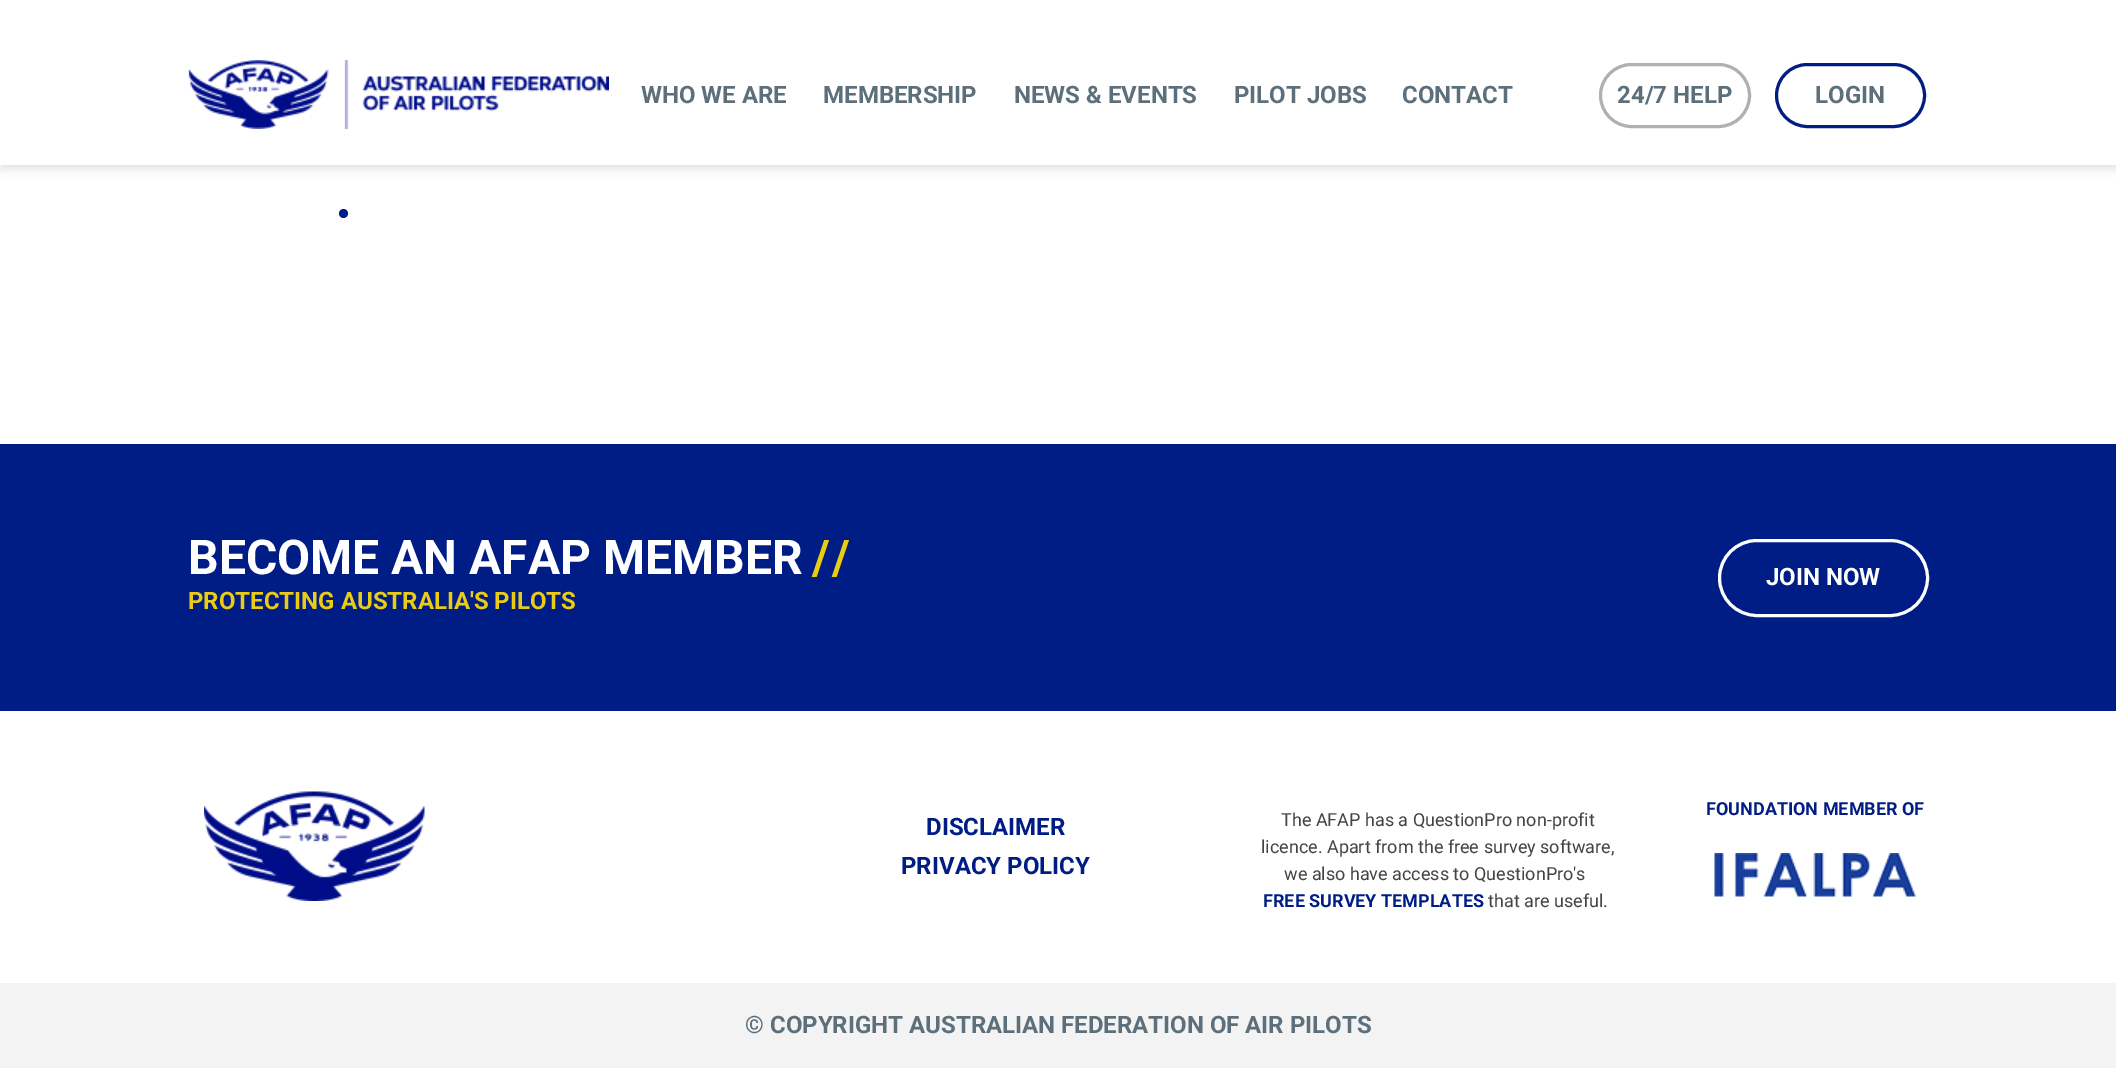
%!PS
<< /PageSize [2116 1068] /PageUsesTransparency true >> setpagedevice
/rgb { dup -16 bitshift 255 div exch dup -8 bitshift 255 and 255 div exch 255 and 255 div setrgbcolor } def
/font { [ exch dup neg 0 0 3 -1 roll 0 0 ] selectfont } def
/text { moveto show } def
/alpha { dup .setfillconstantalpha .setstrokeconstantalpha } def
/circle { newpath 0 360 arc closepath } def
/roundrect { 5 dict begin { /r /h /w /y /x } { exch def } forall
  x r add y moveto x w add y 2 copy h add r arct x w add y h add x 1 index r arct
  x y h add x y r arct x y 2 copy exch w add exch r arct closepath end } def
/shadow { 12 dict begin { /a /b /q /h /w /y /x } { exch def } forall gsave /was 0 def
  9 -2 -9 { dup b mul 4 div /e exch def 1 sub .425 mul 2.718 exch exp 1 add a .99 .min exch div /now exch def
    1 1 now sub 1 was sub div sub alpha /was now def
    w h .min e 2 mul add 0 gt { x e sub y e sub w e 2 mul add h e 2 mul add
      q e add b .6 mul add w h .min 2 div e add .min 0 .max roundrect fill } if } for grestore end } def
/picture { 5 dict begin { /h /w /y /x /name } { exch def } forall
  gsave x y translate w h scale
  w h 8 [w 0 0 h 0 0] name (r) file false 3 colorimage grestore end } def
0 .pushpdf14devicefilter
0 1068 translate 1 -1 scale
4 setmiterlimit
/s1 { /Roboto-Bold 24 font 16#5C6F7B rgb } def
/s2 { /Roboto-Bold 48 font 16#FFFFFF rgb } def
/s3 { /Roboto-Bold 24 font 16#E9CC13 rgb } def
/s4 { /Roboto-Bold 24 font 16#FFFFFF rgb } def
/s5 { /Roboto-Bold 18 font 16#001C85 rgb } def
/s6 { /Roboto-Bold 24 font 16#001C85 rgb } def
/s7 { /Roboto-Regular 18 font 16#444444 rgb } def
16#FFFFFF rgb
0 0 2116 1068 rectfill
16#000000 rgb
0 5 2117 165 0 4 0.1 shadow
16#FFFFFF rgb
0 0 2116 165 rectfill
(pic1.raw) 188 60 421 69 picture
s1
(WHO WE ARE) 641 103 text
(MEMBERSHIP) 823 103 text
(NEWS & EVENTS) 1014 103 text
(PILOT JOBS) 1234 103 text
(CONTACT) 1402 103 text
16#B0B0B0 rgb
3 setlinewidth
1600.5 64.5 149 62 31 roundrect stroke
s1
(24/7 HELP) 1617 103 text
16#001C85 rgb
1776.5 64.5 148 62 31 roundrect stroke
s1
(LOGIN) 1815 103 text
16#001C85 rgb
343.5 213.5 4.5 circle fill
0 444 2116 267 rectfill
s2
(BECOME AN AFAP MEMBER) 188 574 text
16#E9CC13 rgb
812 574 moveto 2 0 (//) ashow
s3
(PROTECTING AUSTRALIA'S PILOTS) 188 609 text
16#FFFFFF rgb
1719.5 540.5 208 75 37.5 roundrect stroke
(JOIN NOW) 1766 585 text
(pic2.raw) 204 791 221 110 picture
s5
(FOUNDATION MEMBER OF) 1706 815 text
(pic3.raw) 1714 853 202 44 picture
s6
(DISCLAIMER) 926 835 text
(PRIVACY POLICY) 901 874 text
s7
(The AFAP has a QuestionPro non-profit) 1281 826 text
(licence. Apart from the free survey software,) 1261 853 text
(we also have access to QuestionPro's) 1284 880 text
s5
(FREE SURVEY TEMPLATES) 1263 907 text
s7
(that are useful.) 1488 907 text
16#F3F3F3 rgb
0 983 2116 85 rectfill
s1
(© COPYRIGHT AUSTRALIAN FEDERATION OF AIR PILOTS) 745 1033 text
.poppdf14devicefilter showpage
